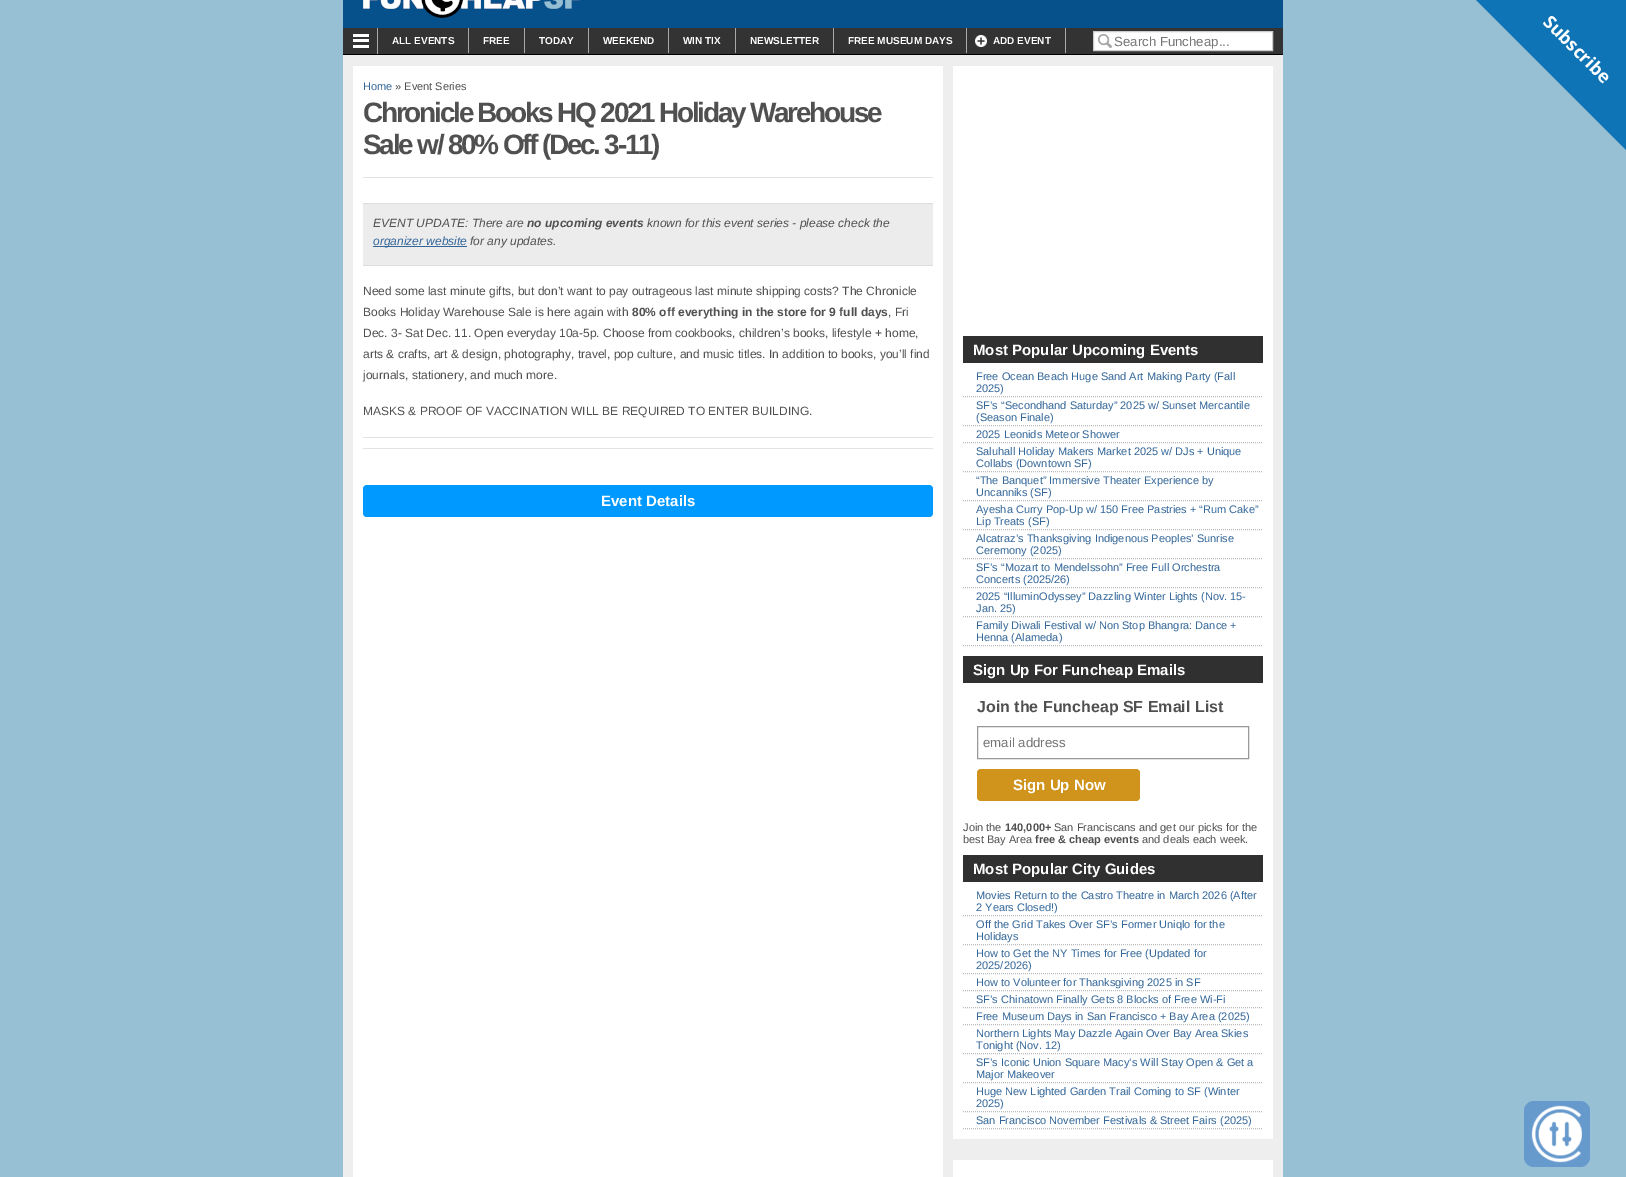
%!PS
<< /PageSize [1626 1177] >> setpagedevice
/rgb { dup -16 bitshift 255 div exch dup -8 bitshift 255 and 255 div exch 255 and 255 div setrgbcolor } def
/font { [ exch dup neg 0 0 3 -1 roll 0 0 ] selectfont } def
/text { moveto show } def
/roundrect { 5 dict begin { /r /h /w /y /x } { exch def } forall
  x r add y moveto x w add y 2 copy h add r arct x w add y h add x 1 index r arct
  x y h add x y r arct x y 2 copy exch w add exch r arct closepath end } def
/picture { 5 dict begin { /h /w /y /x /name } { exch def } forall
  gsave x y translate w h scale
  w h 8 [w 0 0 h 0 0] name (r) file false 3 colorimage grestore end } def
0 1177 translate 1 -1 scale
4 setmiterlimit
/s1 { /LiberationSans-Bold 10 font 16#FFFFFF rgb } def
/s2 { /LiberationSans-Regular 13.25 font 16#757575 rgb } def
/s3 { /LiberationSans-Regular 11 font 16#336699 rgb } def
/s4 { /LiberationSans-Regular 11 font 16#505050 rgb } def
/s5 { /LiberationSans-Italic 12 font 16#505050 rgb } def
/s6 { /LiberationSans-BoldItalic 12 font 16#505050 rgb } def
/s7 { /LiberationSans-Italic 12 font 16#336699 rgb } def
/s8 { /LiberationSans-Regular 12 font 16#505050 rgb } def
/s9 { /LiberationSans-Bold 12 font 16#505050 rgb } def
/s10 { /LiberationSans-Bold 15 font 16#FFFFFF rgb } def
/s11 { /LiberationSans-Bold 16 font 16#505050 rgb } def
/s12 { /LiberationSans-Bold 11 font 16#505050 rgb } def
16#97C0D4 rgb
0 0 1626 1177 rectfill
16#06518B rgb
343 0 940 28 rectfill
(pic1.raw) 363 0 217 18 picture
16#0F74B5 rgb
1476 0 moveto 1626 0 lineto 1626 150 lineto closepath fill
/OpenSans-Bold 18 font
16#FFFFFF rgb
gsave 1542 23 translate 45 rotate 0 0 moveto (Subscribe) show grestore
16#333333 rgb
343 28 940 26 rectfill
16#A8A8A8 rgb
377 28 1 26 rectfill
16#FFFFFF rgb
353 34 16 3 rectfill
353 39 16 3 rectfill
353 45 16 3 rectfill
16#A8A8A8 rgb
468 28 1 25 rectfill
s1
(ALL EVENTS) 392 44 text
16#A8A8A8 rgb
524 28 1 25 rectfill
s1
(FREE) 483 44 text
16#A8A8A8 rgb
588 28 1 25 rectfill
s1
(TODAY) 539 44 text
16#A8A8A8 rgb
668 28 1 25 rectfill
s1
(WEEKEND) 603 44 text
16#A8A8A8 rgb
735 28 1 25 rectfill
s1
(WIN TIX) 683 44 text
16#A8A8A8 rgb
833 28 1 25 rectfill
s1
(NEWSLETTER) 750 44 text
16#A8A8A8 rgb
966 28 1 25 rectfill
s1
(FREE MUSEUM DAYS) 848 44 text
16#A8A8A8 rgb
1065 28 1 25 rectfill
(pic2.raw) 975 35 12 12 picture
s1
(ADD EVENT) 993 44 text
1094 32 178 18 rectfill
(pic3.raw) 1098 34 14 14 picture
16#CCCCCC rgb
1093.5 31.5 179 19 rectstroke
s2
(Search Funcheap...) 1114 46 text
16#000000 rgb
343 54 940 1 rectfill
16#EEEEEE rgb
343 55 940 1122 rectfill
16#FFFFFF rgb
353 66 590 1111 rectfill
s3
(Home) 363 90 text
s4
(» Event Series) 395 90 text
/LiberationSans-Bold 28 font
363 122 moveto -2.25 0 (Chronicle Books HQ 2021 Holiday Warehouse) ashow
363 154 moveto -2.25 0 (Sale w/ 80% Off \(Dec. 3-11\)) ashow
16#E2E2E2 rgb
363 177 570 1 rectfill
363 437 570 1 rectfill
16#ECECEC rgb
363 204 570 61 rectfill
16#DDDDDD rgb
363 203 570 1 rectfill
363 265 570 1 rectfill
s5
(EVENT UPDATE: There are) 373 227 text
s6
(no upcoming events) 527 227 text
s5
(known for this event series - please check the) 647 227 text
16#336699 rgb
373 246 94 1 rectfill
(organizer website) 373 245 text
s5
(for any updates.) 470 245 text
s8
(Need some last minute gifts, but don’t want to pay outrageous last minute shipping costs? The Chronicle) 363 295 text
(Books Holiday Warehouse Sale is here again with) 363 316 text
s9
(80% off everything in the store for 9 full days) 632 316 text
s8
(, Fri) 888 316 text
(Dec. 3- Sat Dec. 11. Open everyday 10a-5p. Choose from cookbooks, children’s books, lifestyle + home,) 363 337 text
(arts & crafts, art & design, photography, travel, pop culture, and music titles. In addition to books, you’ll find) 363 358 text
(journals, stationery, and much more.) 363 379 text
(MASKS & PROOF OF VACCINATION WILL BE REQUIRED TO ENTER BUILDING.) 363 415 text
16#E2E2E2 rgb
363 448 570 1 rectfill
16#0099FF rgb
363 485 570 32 4 roundrect fill
s10
(Event Details) 601 506 text
953 66 320 1073 rectfill
16#303030 rgb
963 336 300 27 rectfill
s10
(Most Popular Upcoming Events) 973 355 text
16#BBBBBB rgb
[1 1] 0 setdash
963 396.5 moveto 1263 396.5 lineto stroke
s3
(Free Ocean Beach Huge Sand Art Making Party \(Fall) 976 380 text
(2025\)) 976 392 text
16#BBBBBB rgb
963 425.5 moveto 1263 425.5 lineto stroke
s3
(SF’s “Secondhand Saturday” 2025 w/ Sunset Mercantile) 976 409 text
(\(Season Finale\)) 976 421 text
16#BBBBBB rgb
963 442.5 moveto 1263 442.5 lineto stroke
s3
(2025 Leonids Meteor Shower) 976 438 text
16#BBBBBB rgb
963 471.5 moveto 1263 471.5 lineto stroke
s3
(Saluhall Holiday Makers Market 2025 w/ DJs + Unique) 976 455 text
(Collabs \(Downtown SF\)) 976 467 text
16#BBBBBB rgb
963 500.5 moveto 1263 500.5 lineto stroke
s3
(“The Banquet” Immersive Theater Experience by) 976 484 text
(Uncanniks \(SF\)) 976 496 text
16#BBBBBB rgb
963 529.5 moveto 1263 529.5 lineto stroke
s3
(Ayesha Curry Pop-Up w/ 150 Free Pastries + “Rum Cake”) 976 513 text
(Lip Treats \(SF\)) 976 525 text
16#BBBBBB rgb
963 558.5 moveto 1263 558.5 lineto stroke
s3
(Alcatraz’s Thanksgiving Indigenous Peoples’ Sunrise) 976 542 text
(Ceremony \(2025\)) 976 554 text
16#BBBBBB rgb
963 587.5 moveto 1263 587.5 lineto stroke
s3
(SF’s “Mozart to Mendelssohn” Free Full Orchestra) 976 571 text
(Concerts \(2025/26\)) 976 583 text
16#BBBBBB rgb
963 616.5 moveto 1263 616.5 lineto stroke
s3
(2025 “IlluminOdyssey” Dazzling Winter Lights \(Nov. 15-) 976 600 text
(Jan. 25\)) 976 612 text
16#BBBBBB rgb
963 645.5 moveto 1263 645.5 lineto stroke
s3
(Family Diwali Festival w/ Non Stop Bhangra: Dance +) 976 629 text
(Henna \(Alameda\)) 976 641 text
16#303030 rgb
963 656 300 27 rectfill
s10
(Sign Up For Funcheap Emails) 973 675 text
s11
(Join the Funcheap SF Email List) 977 712 text
16#999999 rgb
[] 0 setdash
977.5 726.5 271 32 rectstroke
s2
(email address) 983 747 text
16#D0931C rgb
977 769 163 32 4 roundrect fill
s10
(Sign Up Now) 1013 790 text
s4
(Join the) 963 831 text
s12
(140,000+) 1005 831 text
s4
(San Franciscans and get our picks for the) 1054 831 text
(best Bay Area) 963 843 text
s12
(free & cheap events) 1035 843 text
s4
(and deals each week.) 1142 843 text
16#303030 rgb
963 855 300 27 rectfill
s10
(Most Popular City Guides) 973 874 text
16#BBBBBB rgb
[1 1] 0 setdash
963 915.5 moveto 1263 915.5 lineto stroke
s3
(Movies Return to the Castro Theatre in March 2026 \(After) 976 899 text
(2 Years Closed!\)) 976 911 text
16#BBBBBB rgb
963 944.5 moveto 1263 944.5 lineto stroke
s3
(Off the Grid Takes Over SF’s Former Uniqlo for the) 976 928 text
(Holidays) 976 940 text
16#BBBBBB rgb
963 973.5 moveto 1263 973.5 lineto stroke
s3
(How to Get the NY Times for Free \(Updated for) 976 957 text
(2025/2026\)) 976 969 text
16#BBBBBB rgb
963 990.5 moveto 1263 990.5 lineto stroke
s3
(How to Volunteer for Thanksgiving 2025 in SF) 976 986 text
16#BBBBBB rgb
963 1007.5 moveto 1263 1007.5 lineto stroke
s3
(SF’s Chinatown Finally Gets 8 Blocks of Free Wi-Fi) 976 1003 text
16#BBBBBB rgb
963 1024.5 moveto 1263 1024.5 lineto stroke
s3
(Free Museum Days in San Francisco + Bay Area \(2025\)) 976 1020 text
16#BBBBBB rgb
963 1053.5 moveto 1263 1053.5 lineto stroke
s3
(Northern Lights May Dazzle Again Over Bay Area Skies) 976 1037 text
(Tonight \(Nov. 12\)) 976 1049 text
16#BBBBBB rgb
963 1082.5 moveto 1263 1082.5 lineto stroke
s3
(SF’s Iconic Union Square Macy’s Will Stay Open & Get a) 976 1066 text
(Major Makeover) 976 1078 text
16#BBBBBB rgb
963 1111.5 moveto 1263 1111.5 lineto stroke
s3
(Huge New Lighted Garden Trail Coming to SF \(Winter) 976 1095 text
(2025\)) 976 1107 text
16#BBBBBB rgb
963 1128.5 moveto 1263 1128.5 lineto stroke
s3
(San Francisco November Festivals & Street Fairs \(2025\)) 976 1124 text
16#FFFFFF rgb
953 1160 320 17 rectfill
16#6699CC rgb
1524 1101 66 66 10 roundrect fill
(pic4.raw) 1531 1105 51 58 picture
showpage
